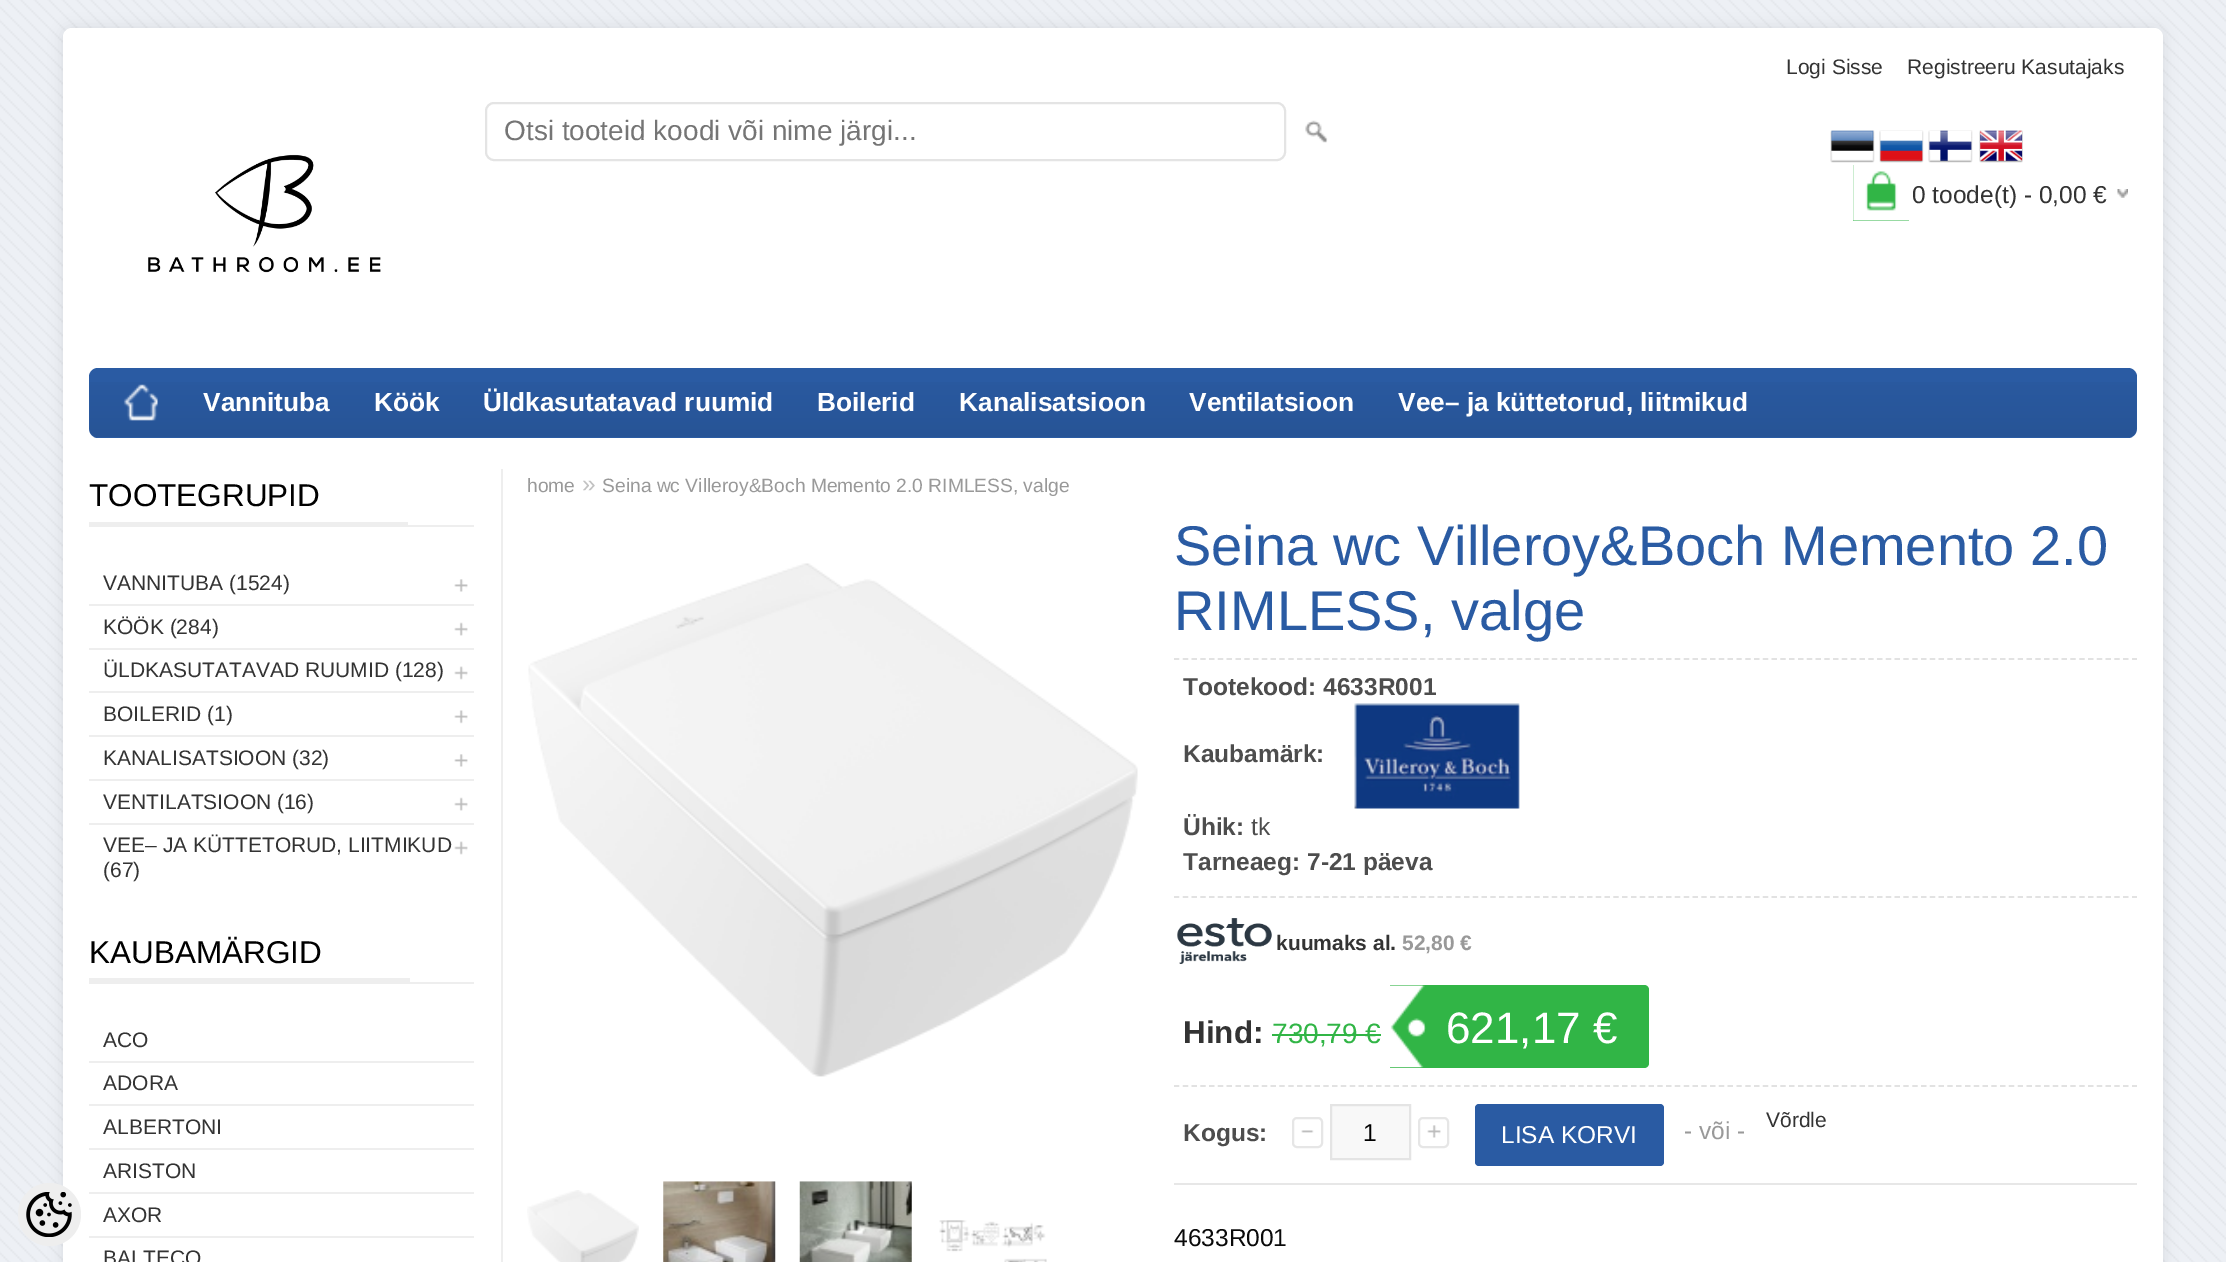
%!PS
<< /PageSize [2226 1262] /PageUsesTransparency true >> setpagedevice
/rgb { dup -16 bitshift 255 div exch dup -8 bitshift 255 and 255 div exch 255 and 255 div setrgbcolor } def
/font { [ exch dup neg 0 0 3 -1 roll 0 0 ] selectfont } def
/text { moveto show } def
/alpha { dup .setfillconstantalpha .setstrokeconstantalpha } def
/circle { newpath 0 360 arc closepath } def
/roundrect { 5 dict begin { /r /h /w /y /x } { exch def } forall
  x r add y moveto x w add y 2 copy h add r arct x w add y h add x 1 index r arct
  x y h add x y r arct x y 2 copy exch w add exch r arct closepath end } def
/shadow { 12 dict begin { /a /b /q /h /w /y /x } { exch def } forall gsave /was 0 def
  9 -2 -9 { dup b mul 4 div /e exch def 1 sub .425 mul 2.718 exch exp 1 add a .99 .min exch div /now exch def
    1 1 now sub 1 was sub div sub alpha /was now def
    w h .min e 2 mul add 0 gt { x e sub y e sub w e 2 mul add h e 2 mul add
      q e add b .6 mul add w h .min 2 div e add .min 0 .max roundrect fill } if } for grestore end } def
/picture { 5 dict begin { /h /w /y /x /name } { exch def } forall
  gsave x y translate w h scale
  w h 8 [w 0 0 h 0 0] name (r) file false 3 colorimage grestore end } def
0 .pushpdf14devicefilter
0 1262 translate 1 -1 scale
4 setmiterlimit
/s1 { /LiberationSans-Regular 21 font 16#333333 rgb } def
/s2 { /LiberationSans-Regular 28 font 16#757575 rgb } def
/s3 { /LiberationSans-Regular 24.5 font 16#333333 rgb } def
/s4 { /LiberationSans-Bold 26.25 font 16#FFFFFF rgb } def
/s5 { /LiberationSans-Regular 31.5 font 16#000000 rgb } def
/s6 { /LiberationSans-Regular 19.25 font 16#999999 rgb } def
/s7 { /LiberationSans-Regular 24.5 font 16#C2C2C2 rgb } def
/s8 { /LiberationSans-Regular 56 font 16#2A5BA3 rgb } def
/s9 { /LiberationSans-Bold 24.5 font 16#4D4D4D rgb } def
/s10 { /LiberationSans-Regular 24.5 font 16#4D4D4D rgb } def
/s11 { /LiberationSans-Bold 21 font 16#333333 rgb } def
/s12 { /LiberationSans-Bold 21 font 16#999999 rgb } def
/s13 { /LiberationSans-Bold 31.5 font 16#333333 rgb } def
/s14 { /LiberationSans-Regular 28 font 16#31B546 rgb } def
/s15 { /LiberationSans-Regular 44 font 16#FFFFFF rgb } def
/s16 { /LiberationSans-Regular 24.5 font 16#000000 rgb } def
/s17 { /LiberationSans-Regular 24.5 font 16#FFFFFF rgb } def
/s18 { /LiberationSans-Regular 24.5 font 16#999999 rgb } def
/s19 { /LiberationSans-Regular 24.5 font 16#0A0A0A rgb } def
16#EDF0F5 rgb
0 0 2226 1262 rectfill
(pic1.raw) 0 0 2226 1262 picture
16#000000 rgb
63 28 2100 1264 9 7 0.08 shadow
16#FFFFFF rgb
72 28 moveto 2154 28 lineto 2159 28 2163 32 2163 37 curveto 2163 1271 lineto 63 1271 lineto 63 37 lineto 63 32 67 28 72 28 curveto closepath fill
16#EEEEEE rgb
49.5 1214.5 31.5 circle fill
(pic2.raw) 26 1192 46 45 picture
s1
(Logi Sisse) 1786 74 text
(Registreeru Kasutajaks) 1907 74 text
16#E4E4E4 rgb
2 setlinewidth
486 103 799 57 8 roundrect stroke
s2
(Otsi tooteid koodi või nime järgi...) 504 140 text
(pic3.raw) 1305 120 23 23 picture
(pic4.raw) 1830 130 45 33 picture
(pic5.raw) 1879 130 45 33 picture
(pic6.raw) 1928 130 45 33 picture
(pic7.raw) 1979 130 44 33 picture
(pic8.raw) 148 154 233 119 picture
16#31B546 rgb
1853 165 56 56 rectfill
(pic9.raw) 1853 165 56 56 picture
(pic10.raw) 2117 189 11 9 picture
s3
(0 toode\(t\) - 0,00 €) 1912 203 text
16#2A5BA3 rgb
89 368 2048 70 9 roundrect fill
(pic11.raw) 89 382 2048 55 picture
(pic12.raw) 123 384 35 37 picture
s4
(Vannituba) 203 411 text
(Köök) 374 411 text
(Üldkasutatavad ruumid) 483 411 text
(Boilerid) 817 411 text
(Kanalisatsioon) 959 411 text
(Ventilatsioon) 1189 411 text
(Vee– ja küttetorud, liitmikud) 1398 411 text
16#EEEEEE rgb
501 469 2 793 rectfill
89 525 385 2 rectfill
89 522 319 3 rectfill
s5
(TOOTEGRUPID) 89 506 text
s1
(VANNITUBA \(1524\)) 103 590 text
(pic13.raw) 454 579 14 13 picture
16#EEEEEE rgb
89 604 385 2 rectfill
s1
(KÖÖK \(284\)) 103 634 text
(pic14.raw) 454 622 14 14 picture
16#EEEEEE rgb
89 648 385 2 rectfill
s1
(ÜLDKASUTATAVAD RUUMID \(128\)) 103 677 text
(pic15.raw) 454 666 14 14 picture
16#EEEEEE rgb
89 691 385 2 rectfill
s1
(BOILERID \(1\)) 103 721 text
(pic16.raw) 454 710 14 14 picture
16#EEEEEE rgb
89 735 385 2 rectfill
s1
(KANALISATSIOON \(32\)) 103 765 text
(pic13.raw) 454 754 14 13 picture
16#EEEEEE rgb
89 779 385 2 rectfill
s1
(VENTILATSIOON \(16\)) 103 809 text
(pic14.raw) 454 797 14 14 picture
16#EEEEEE rgb
89 823 385 2 rectfill
s1
(VEE– JA KÜTTETORUD, LIITMIKUD) 103 852 text
(\(67\)) 103 877 text
(pic15.raw) 454 841 14 14 picture
16#EEEEEE rgb
89 982 385 2 rectfill
89 978 321 4 rectfill
s5
(KAUBAMÄRGID) 89 963 text
s1
(ACO) 103 1047 text
16#EEEEEE rgb
89 1061 385 2 rectfill
s1
(ADORA) 103 1090 text
16#EEEEEE rgb
89 1104 385 2 rectfill
s1
(ALBERTONI) 103 1134 text
16#EEEEEE rgb
89 1148 385 2 rectfill
s1
(ARISTON) 103 1178 text
16#EEEEEE rgb
89 1192 385 2 rectfill
s1
(AXOR) 103 1222 text
16#EEEEEE rgb
89 1236 385 2 rectfill
s1
(BALTECO) 103 1265 text
s6
(home) 527 492 text
s7
(») 582 492 text
s6
(Seina wc Villeroy&Boch Memento 2.0 RIMLESS, valge) 602 492 text
(pic17.raw) 528 563 610 514 picture
(pic18.raw) 527 1190 112 72 picture
(pic19.raw) 663 1181 113 81 picture
(pic20.raw) 799 1181 113 81 picture
(pic21.raw) 939 1220 108 42 picture
s8
(Seina wc Villeroy&Boch Memento 2.0) 1174 565 text
(RIMLESS, valge) 1174 630 text
16#E2E2E2 rgb
1.8 setlinewidth
[5.25 3.54] 0 setdash
1174 659 moveto 2137 659 lineto stroke
1174 897 moveto 2137 897 lineto stroke
s9
(Tootekood: 4633R001) 1183 695 text
(Kaubamärk:) 1183 762 text
(pic22.raw) 1354 703 166 106 picture
(Ühik:) 1183 835 text
s10
(tk) 1251 835 text
s9
(Tarneaeg: 7-21 päeva) 1183 870 text
(pic23.raw) 1177 918 95 46 picture
s11
(kuumaks al.) 1276 950 text
s12
(52,80 €) 1402 950 text
16#E2E2E2 rgb
1174 1086 moveto 2137 1086 lineto stroke
s13
(Hind:) 1183 1043 text
s14
(730,79 €) 1272 1043 text
1272 1034 109 2 rectfill
1390 985 moveto 1644 985 lineto 1647 985 1649 987 1649 990 curveto 1649 1063 lineto 1649 1066 1647 1068 1644 1068 curveto 1390 1068 lineto closepath fill
(pic24.raw) 1390 985 36 83 picture
s15
(621,17 €) 1446 1043 text
16#E7E7E7 rgb
1174 1183 963 2 rectfill
s9
(Kogus:) 1183 1141 text
(pic25.raw) 1301 1130 13 3 picture
16#E6E6E6 rgb
2 setlinewidth
[] 0 setdash
1293 1118 29 29 4 roundrect stroke
16#F8F8F8 rgb
1331 1105 moveto 1410 1105 lineto 1410 1159 lineto 1331 1159 lineto closepath gsave fill grestore
16#E4E4E4 rgb
stroke
s16
(1) 1363 1141 text
(pic13.raw) 1427 1125 14 13 picture
16#E6E6E6 rgb
1419 1118 29 29 4 roundrect stroke
16#2A5BA3 rgb
1475 1104 189 62 4 roundrect fill
s17
(LISA KORVI) 1501 1143 text
s18
(- või -) 1684 1139 text
s1
(Võrdle) 1766 1127 text
s19
(4633R001) 1174 1246 text
.poppdf14devicefilter showpage
